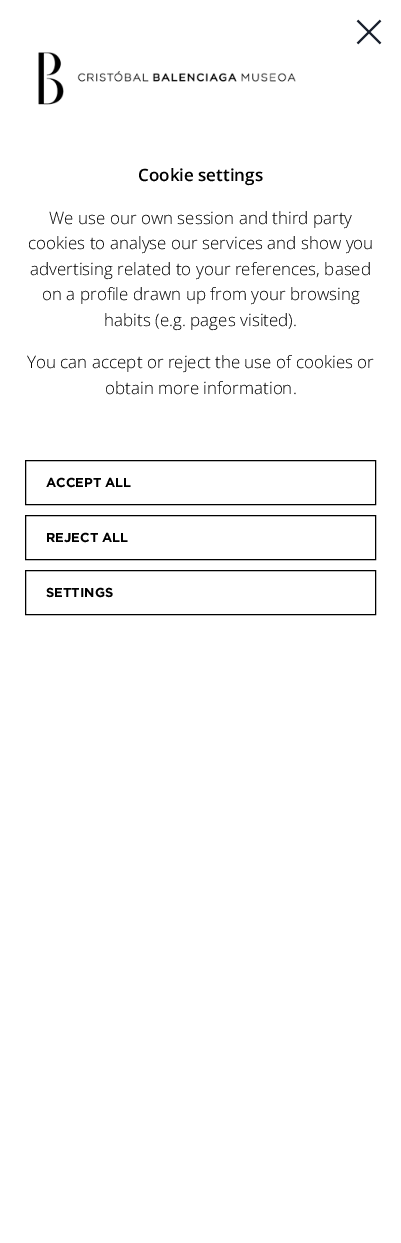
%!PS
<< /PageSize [401 1243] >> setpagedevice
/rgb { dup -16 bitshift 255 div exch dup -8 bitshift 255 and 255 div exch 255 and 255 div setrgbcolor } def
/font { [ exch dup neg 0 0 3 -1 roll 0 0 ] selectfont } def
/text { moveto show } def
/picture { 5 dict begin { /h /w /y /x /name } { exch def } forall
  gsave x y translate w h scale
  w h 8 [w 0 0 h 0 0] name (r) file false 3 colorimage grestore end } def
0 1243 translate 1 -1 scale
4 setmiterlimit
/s1 { /OpenSans-SemiBold 17 font 16#000000 rgb } def
/s2 { /OpenSans-Light 17 font 16#000000 rgb } def
/s3 { /Gotham-Bold 13 font 16#000000 rgb } def
16#FFFFFF rgb
0 0 401 1243 rectfill
16#181F2C rgb
2 setlinewidth
357.5 43.5 moveto 369 32 lineto 380.5 20.5 moveto 369 32 lineto 369 32 moveto 357.5 20.5 lineto 380.5 43.5 lineto stroke
(pic1.raw) 38 52 258 53 picture
s1
(Cookie settings) 138 181 text
s2
(We use our own session and third party) 49 224 text
(cookies to analyse our services and show you) 28 249 text
(advertising related to your references, based) 30 275 text
(on a profile drawn up from your browsing) 42 300 text
(habits \(e.g. pages visited\).) 104 326 text
(You can accept or reject the use of cookies or) 27 368 text
(obtain more information.) 105 394 text
1 setlinewidth
25.5 460.5 350 44 rectstroke
s3
(ACCEPT ALL) 46 487 text
25.5 515.5 350 44 rectstroke
(REJECT ALL) 46 542 text
25.5 570.5 350 44 rectstroke
(SETTINGS) 46 597 text
showpage
